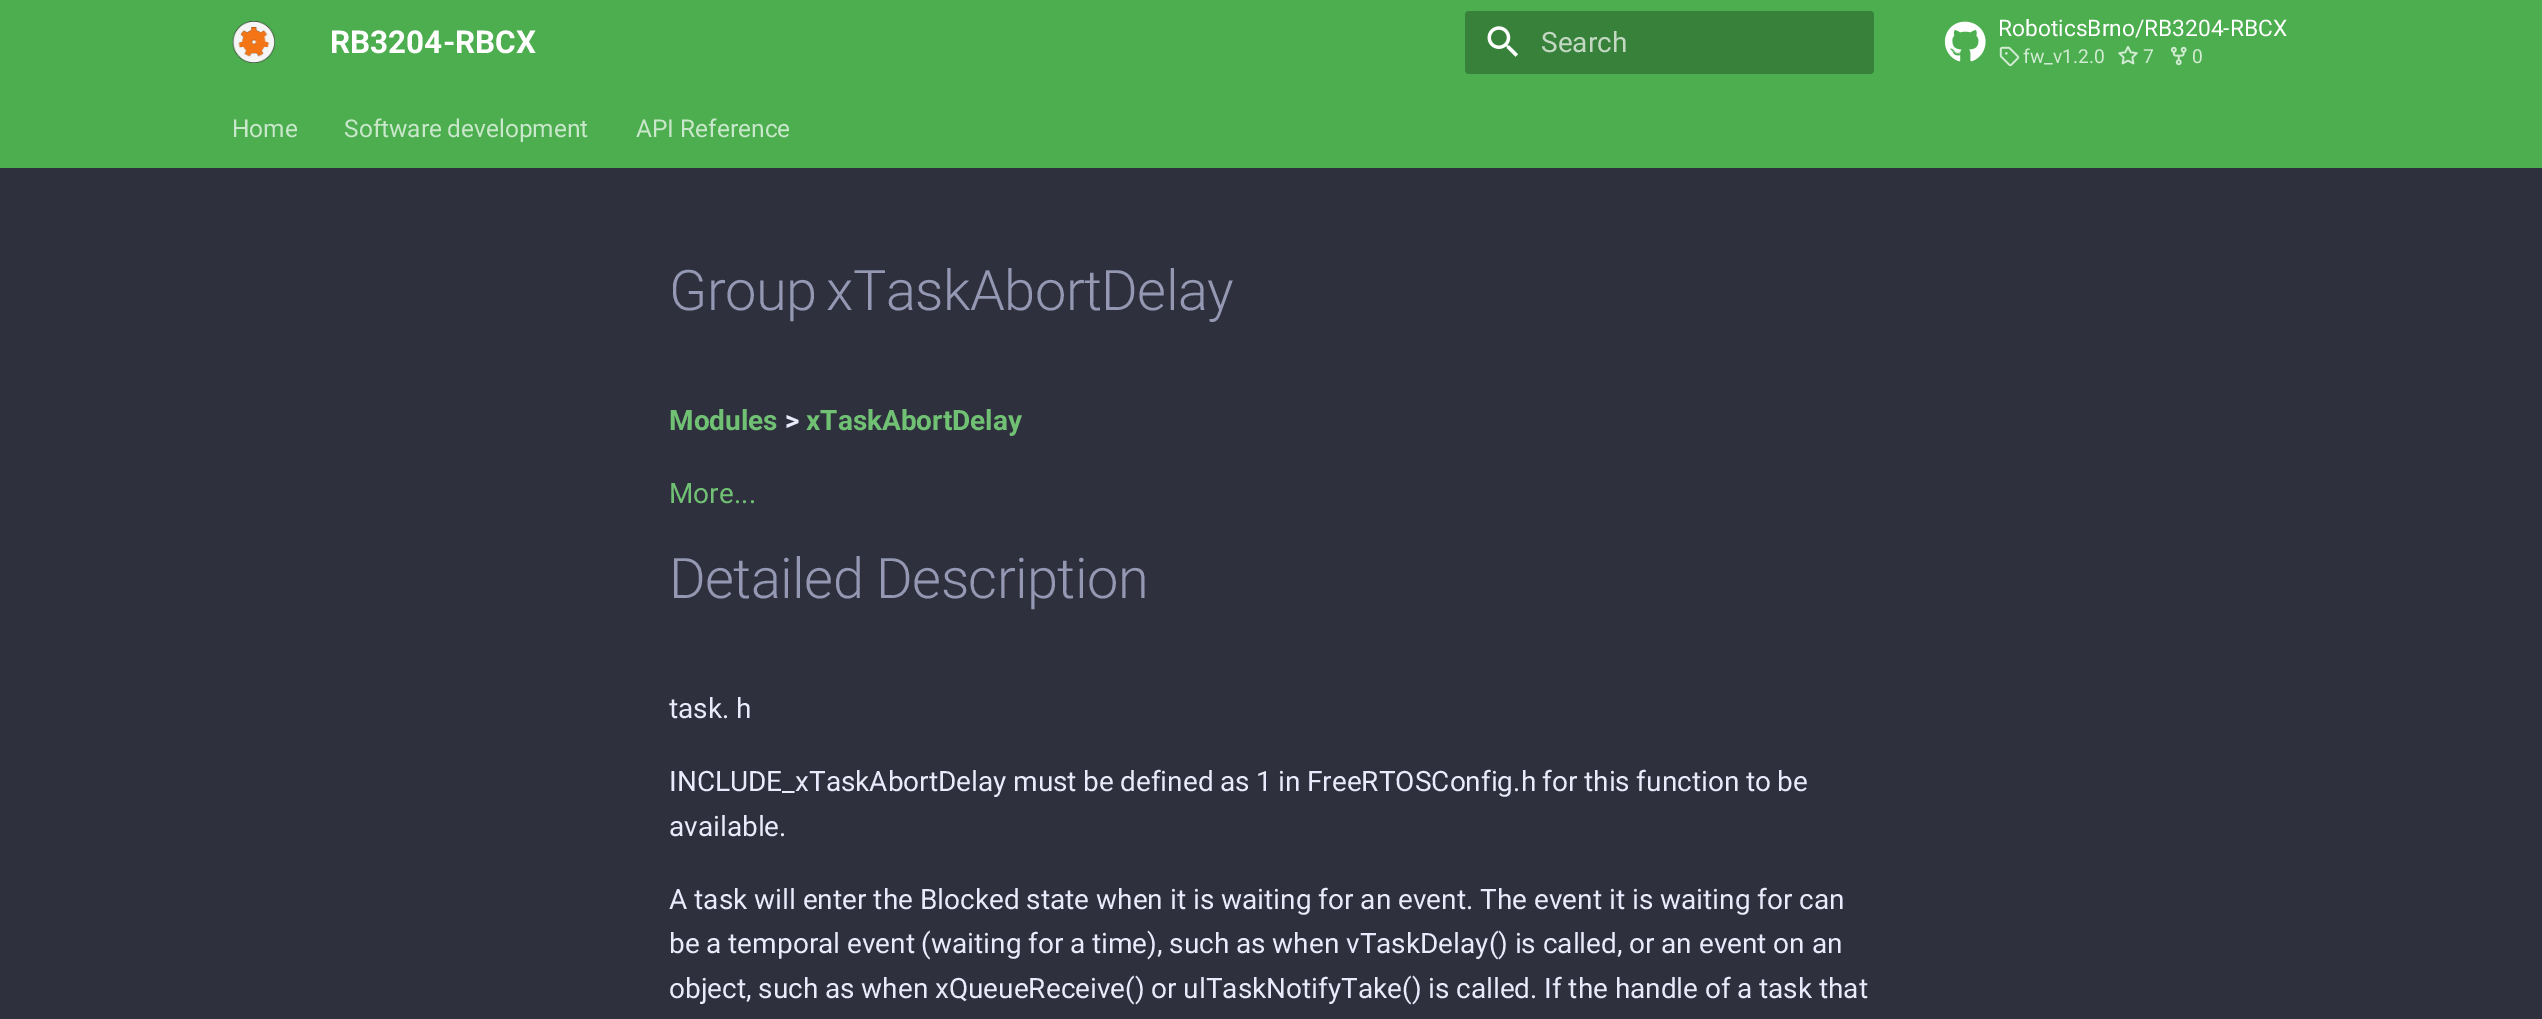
%!PS
<< /PageSize [2542 1019] >> setpagedevice
/rgb { dup -16 bitshift 255 div exch dup -8 bitshift 255 and 255 div exch 255 and 255 div setrgbcolor } def
/font { [ exch dup neg 0 0 3 -1 roll 0 0 ] selectfont } def
/text { moveto show } def
/roundrect { 5 dict begin { /r /h /w /y /x } { exch def } forall
  x r add y moveto x w add y 2 copy h add r arct x w add y h add x 1 index r arct
  x y h add x y r arct x y 2 copy exch w add exch r arct closepath end } def
/picture { 5 dict begin { /h /w /y /x /name } { exch def } forall
  gsave x y translate w h scale
  w h 8 [w 0 0 h 0 0] name (r) file false 3 colorimage grestore end } def
0 1019 translate 1 -1 scale
4 setmiterlimit
/s1 { /Roboto-Bold 31.5 font 16#FFFFFF rgb } def
/s2 { /Roboto-Regular 28 font 16#C3D9C4 rgb } def
/s3 { /Roboto-Regular 22.75 font 16#FFFFFF rgb } def
/s4 { /Roboto-Regular 19.25 font 16#D2EBD3 rgb } def
/s5 { /Roboto-Regular 24.5 font 16#C9E7CA rgb } def
/s6 { /Roboto-Bold 28 font 16#71C174 rgb } def
/s7 { /Roboto-Bold 28 font 16#E9EBFC rgb } def
/s8 { /Roboto-Regular 28 font 16#71C174 rgb } def
/s9 { /Roboto-Regular 28 font 16#E9EBFC rgb } def
16#2E303E rgb
0 0 2542 1019 rectfill
16#4CAE4F rgb
0 0 2542 168 rectfill
(pic1.raw) 232 21 43 42 picture
s1
(RB3204-RBCX) 330 53 text
16#38813A rgb
1465 11 409 63 4 roundrect fill
(pic2.raw) 1487 26 31 31 picture
s2
(Search) 1541 52 text
(pic3.raw) 1944 21 42 41 picture
s3
(RoboticsBrno/RB3204-RBCX) 1998 36 text
(pic4.raw) 1999 46 21 21 picture
s4
(fw_v1.2.0) 2023 63 text
(pic5.raw) 2118 46 20 19 picture
(7) 2143 63 text
(pic6.raw) 2170 46 17 20 picture
(0) 2192 63 text
s5
(Home) 232 137 text
344 137 moveto -1 0 32 (Software development) widthshow
(API Reference) 636 137 text
/Roboto-Light 56 font
16#9498B2 rgb
669 310 moveto -3 0 32 -0.6 0 (Group xTaskAbortDelay) awidthshow
s6
(Modules) 669 430 text
s7
(>) 785 430 text
s6
(xTaskAbortDelay) 806 430 text
s8
(More...) 669 503 text
/Roboto-Light 56 font
16#9498B2 rgb
669 598 moveto -0.6 0 (Detailed Description) ashow
s9
(task. h) 669 718 text
669 791 moveto -0.5 0 32 (INCLUDE_xTaskAbortDelay must be defined as 1 in FreeRTOSConfig.h for this function to be) widthshow
(available.) 669 836 text
(A task will enter the Blocked state when it is waiting for an event. The event it is waiting for can) 669 909 text
669 953 moveto -0.2 0 32 (be a temporal event \(waiting for a time\), such as when vTaskDelay\(\) is called, or an event on an) widthshow
669 998 moveto -0.25 0 32 (object, such as when xQueueReceive\(\) or ulTaskNotifyTake\(\) is called. If the handle of a task that) widthshow
showpage
